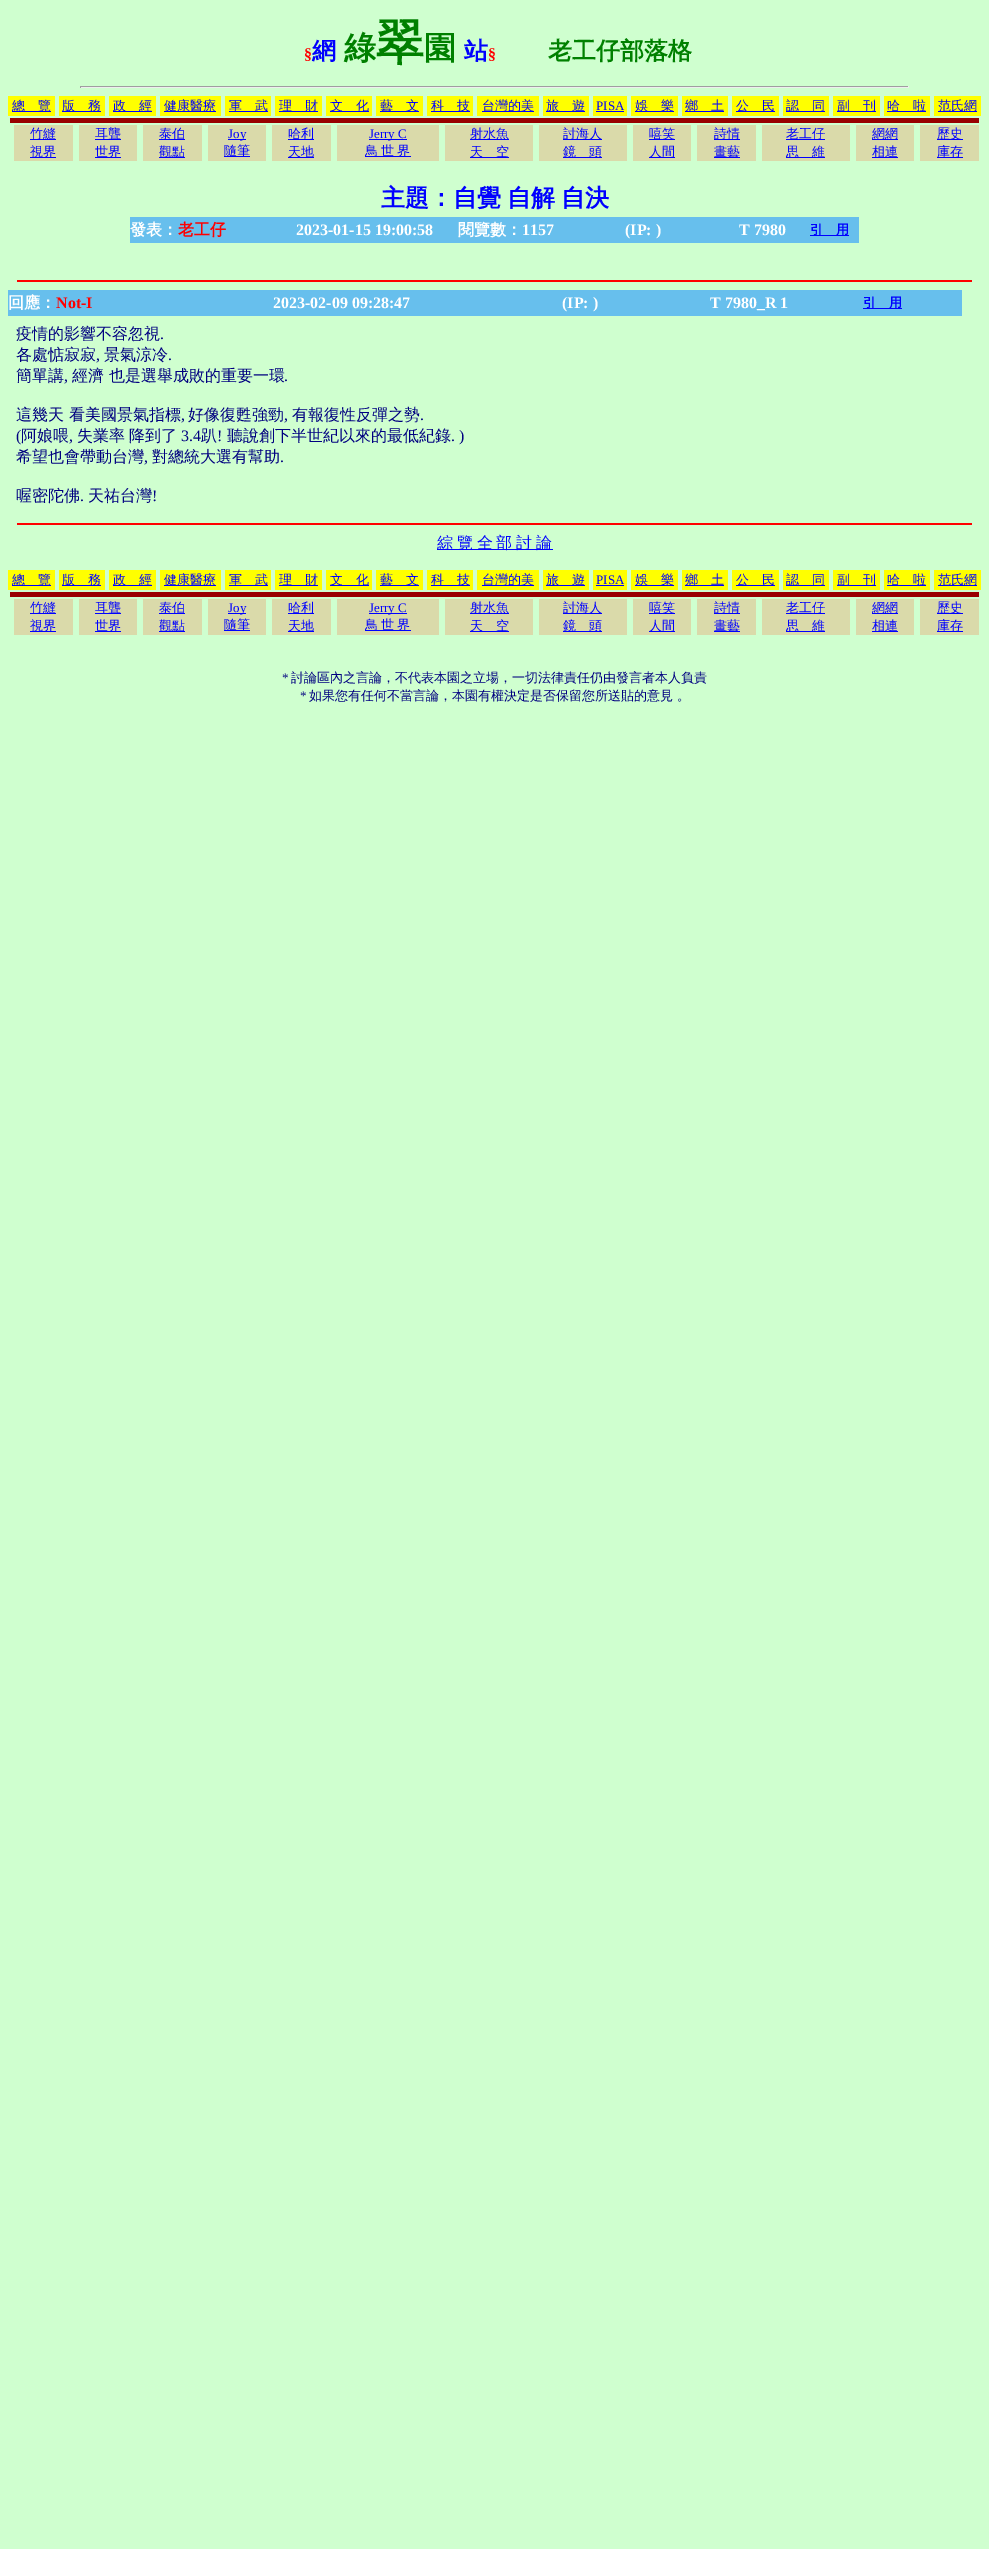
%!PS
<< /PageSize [989 2549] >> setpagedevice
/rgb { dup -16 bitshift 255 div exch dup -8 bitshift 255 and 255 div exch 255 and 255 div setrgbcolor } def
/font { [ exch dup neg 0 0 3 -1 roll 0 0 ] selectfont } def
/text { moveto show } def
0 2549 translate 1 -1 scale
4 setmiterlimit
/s1 { /LiberationSerif-Bold 16 font 16#FF0000 rgb } def
/s2 { /WenQuanYiZenHei-Bold 24 font 16#0000FF rgb } def
/s3 { /WenQuanYiZenHei-Bold 32 font 16#008000 rgb } def
/s4 { /WenQuanYiZenHei-Bold 48 font 16#008000 rgb } def
/s5 { /WenQuanYiZenHei-Bold 24 font 16#008000 rgb } def
/s6 { /WenQuanYiZenHei-Medium 13 font 16#0000FF rgb } def
/s7 { /LiberationSerif-Regular 13 font 16#0000FF rgb } def
/s8 { /WenQuanYiZenHei-Bold 16 font 16#FFFFFF rgb } def
/s9 { /WenQuanYiZenHei-Bold 16 font 16#FF0000 rgb } def
/s10 { /LiberationSerif-Bold 16 font 16#FFFFFF rgb } def
/s11 { /WenQuanYiZenHei-Bold 13 font 16#0000FF rgb } def
/s12 { /WenQuanYiZenHei-Medium 16 font 16#000080 rgb } def
/s13 { /LiberationSerif-Regular 16 font 16#000080 rgb } def
/s14 { /LiberationSerif-Regular 13 font 16#000080 rgb } def
/s15 { /WenQuanYiZenHei-Medium 13 font 16#000080 rgb } def
16#CFFFCF rgb
0 0 989 2549 rectfill
s1
(§) 304 59 text
s2
(網) 312 59 text
s3
(綠) 344 59 text
s4
(翠) 376 59 text
s3
(園) 424 59 text
s2
(站) 464 59 text
s1
(§) 488 59 text
s5
(老工仔部落格) 548 59 text
16#9F9F9F rgb
80 86 829 1 rectfill
16#EEEEEE rgb
908 86 1 2 rectfill
80 87 829 1 rectfill
16#9F9F9F rgb
80 86 1 2 rectfill
16#FFFF00 rgb
8 96 47 20 rectfill
16#0000FF rgb
12 111 39 1 rectfill
s6
(總　覽) 12 110 text
16#FFFF00 rgb
59 96 46 20 rectfill
16#0000FF rgb
62 111 39 1 rectfill
(版　務) 62 110 text
16#FFFF00 rgb
109 96 47 20 rectfill
16#0000FF rgb
113 111 39 1 rectfill
(政　經) 113 110 text
16#FFFF00 rgb
160 96 61 20 rectfill
16#0000FF rgb
164 111 52 1 rectfill
(健康醫療) 164 110 text
16#FFFF00 rgb
225 96 46 20 rectfill
16#0000FF rgb
229 111 39 1 rectfill
(軍　武) 229 110 text
16#FFFF00 rgb
275 96 47 20 rectfill
16#0000FF rgb
279 111 39 1 rectfill
(理　財) 279 110 text
16#FFFF00 rgb
326 96 46 20 rectfill
16#0000FF rgb
330 111 39 1 rectfill
(文　化) 330 110 text
16#FFFF00 rgb
376 96 47 20 rectfill
16#0000FF rgb
380 111 39 1 rectfill
(藝　文) 380 110 text
16#FFFF00 rgb
427 96 46 20 rectfill
16#0000FF rgb
431 111 39 1 rectfill
(科　技) 431 110 text
16#FFFF00 rgb
477 96 62 20 rectfill
16#0000FF rgb
482 111 52 1 rectfill
(台灣的美) 482 110 text
16#FFFF00 rgb
543 96 46 20 rectfill
16#0000FF rgb
546 111 39 1 rectfill
(旅　遊) 546 110 text
16#FFFF00 rgb
593 96 34 20 rectfill
s7
(PISA) 596 110 text
596 111 28 1 rectfill
16#FFFF00 rgb
631 96 47 20 rectfill
16#0000FF rgb
635 111 39 1 rectfill
s6
(娛　樂) 635 110 text
16#FFFF00 rgb
682 96 46 20 rectfill
16#0000FF rgb
685 111 39 1 rectfill
(鄉　土) 685 110 text
16#FFFF00 rgb
732 96 47 20 rectfill
16#0000FF rgb
736 111 39 1 rectfill
(公　民) 736 110 text
16#FFFF00 rgb
783 96 46 20 rectfill
16#0000FF rgb
786 111 39 1 rectfill
(認　同) 786 110 text
16#FFFF00 rgb
833 96 47 20 rectfill
16#0000FF rgb
837 111 39 1 rectfill
(副　刊) 837 110 text
16#FFFF00 rgb
884 96 46 20 rectfill
16#0000FF rgb
887 111 39 1 rectfill
(哈　啦) 887 110 text
16#FFFF00 rgb
934 96 47 20 rectfill
16#0000FF rgb
938 111 39 1 rectfill
(范氏網) 938 110 text
16#990000 rgb
10 118 969 5 rectfill
16#DADAAA rgb
14 125 59 36 rectfill
16#0000FF rgb
30 139 26 1 rectfill
(竹縫) 30 138 text
30 157 26 1 rectfill
(視界) 30 156 text
16#DADAAA rgb
79 125 58 36 rectfill
16#0000FF rgb
95 139 26 1 rectfill
(耳聾) 95 138 text
95 157 26 1 rectfill
(世界) 95 156 text
16#DADAAA rgb
143 125 59 36 rectfill
16#0000FF rgb
159 139 26 1 rectfill
(泰伯) 159 138 text
159 157 26 1 rectfill
(觀點) 159 156 text
16#DADAAA rgb
208 125 58 36 rectfill
16#0000FF rgb
228 139 18 1 rectfill
s7
(Joy) 228 138 text
224 156 26 1 rectfill
s6
(隨筆) 224 155 text
16#DADAAA rgb
272 125 59 36 rectfill
16#0000FF rgb
288 139 26 1 rectfill
(哈利) 288 138 text
288 157 26 1 rectfill
(天地) 288 156 text
16#DADAAA rgb
337 125 102 36 rectfill
16#0000FF rgb
369 139 38 1 rectfill
s7
(Jerry C) 369 138 text
365 156 46 1 rectfill
/WenQuanYiZenHei-Medium 13 font
365 155 moveto -1 0 32 (鳥 世 界) widthshow
16#DADAAA rgb
445 125 88 36 rectfill
16#0000FF rgb
470 139 39 1 rectfill
(射水魚) 470 138 text
470 157 39 1 rectfill
(天　空) 470 156 text
16#DADAAA rgb
539 125 88 36 rectfill
16#0000FF rgb
563 139 39 1 rectfill
(討海人) 563 138 text
563 157 39 1 rectfill
(鏡　頭) 563 156 text
16#DADAAA rgb
633 125 58 36 rectfill
16#0000FF rgb
649 139 26 1 rectfill
(嘻笑) 649 138 text
649 157 26 1 rectfill
(人間) 649 156 text
16#DADAAA rgb
697 125 59 36 rectfill
16#0000FF rgb
714 139 26 1 rectfill
(詩情) 714 138 text
714 157 26 1 rectfill
(畫藝) 714 156 text
16#DADAAA rgb
762 125 88 36 rectfill
16#0000FF rgb
786 139 39 1 rectfill
(老工仔) 786 138 text
786 157 39 1 rectfill
(思　維) 786 156 text
16#DADAAA rgb
856 125 58 36 rectfill
16#0000FF rgb
872 139 26 1 rectfill
(網網) 872 138 text
872 157 26 1 rectfill
(相連) 872 156 text
16#DADAAA rgb
920 125 59 36 rectfill
16#0000FF rgb
937 139 26 1 rectfill
(歷史) 937 138 text
937 157 26 1 rectfill
(庫存) 937 156 text
/WenQuanYiZenHei-Bold 24 font
381 206 moveto -1 0 32 (主題：自覺 自解 自決) widthshow
16#67BFED rgb
130 217 729 26 rectfill
s8
(發表：) 130 235 text
s9
(老工仔) 178 235 text
s10
(2023-01-15 19:00:58) 296 235 text
s8
(閱覽數：) 458 235 text
s10
(1157) 522 235 text
(\(IP: \)) 625 235 text
(T 7980) 739 235 text
16#0000FF rgb
810 235 39 1 rectfill
s11
(引　用) 810 234 text
16#FF0000 rgb
17 280 955 2 rectfill
16#67BFED rgb
8 290 954 26 rectfill
s8
(回應：) 8 308 text
s1
(Not-I) 56 308 text
s10
(2023-02-09 09:28:47) 273 308 text
(\(IP: \)) 562 308 text
(T 7980_R 1) 710 308 text
16#0000FF rgb
863 308 39 1 rectfill
s11
(引　用) 863 307 text
s12
(疫情的影響不容忽視) 16 339 text
s13
(.) 160 339 text
s12
(各處惦寂寂) 16 360 text
s13
(,) 96 360 text
s12
(景氣涼冷) 104 360 text
s13
(.) 168 360 text
s12
(簡單講) 16 381 text
s13
(,) 64 381 text
s12
(經濟 也是選舉成敗的重要一環) 72 381 text
s13
(.) 284 381 text
s12
(這幾天 看美國景氣指標) 16 420 text
s13
(,) 181 420 text
s12
(好像復甦強勁) 188 420 text
s13
(,) 284 420 text
s12
(有報復性反彈之勢) 292 420 text
s13
(.) 420 420 text
(\() 16 441 text
s12
(阿娘喂) 21 441 text
s13
(,) 69 441 text
s12
(失業率) 77 441 text
(降到了) 129 441 text
s13
(3.4) 181 441 text
s12
(趴) 201 441 text
s13
(!) 217 441 text
s12
(聽說創下半世紀以來的最低紀錄) 227 441 text
s13
(. \)) 451 441 text
s12
(希望也會帶動台灣) 16 462 text
s13
(,) 144 462 text
s12
(對總統大選有幫助) 152 462 text
s13
(.) 280 462 text
s12
(喔密陀佛) 16 501 text
s13
(.) 80 501 text
s12
(天祐台灣) 88 501 text
s13
(!) 152 501 text
16#FF0000 rgb
17 523 955 2 rectfill
16#0000FF rgb
437 549 116 1 rectfill
/WenQuanYiZenHei-Medium 16 font
437 548 moveto -1 0 32 (綜 覽 全 部 討 論) widthshow
16#FFFF00 rgb
8 570 47 20 rectfill
16#0000FF rgb
12 585 39 1 rectfill
s6
(總　覽) 12 584 text
16#FFFF00 rgb
59 570 46 20 rectfill
16#0000FF rgb
62 585 39 1 rectfill
(版　務) 62 584 text
16#FFFF00 rgb
109 570 47 20 rectfill
16#0000FF rgb
113 585 39 1 rectfill
(政　經) 113 584 text
16#FFFF00 rgb
160 570 61 20 rectfill
16#0000FF rgb
164 585 52 1 rectfill
(健康醫療) 164 584 text
16#FFFF00 rgb
225 570 46 20 rectfill
16#0000FF rgb
229 585 39 1 rectfill
(軍　武) 229 584 text
16#FFFF00 rgb
275 570 47 20 rectfill
16#0000FF rgb
279 585 39 1 rectfill
(理　財) 279 584 text
16#FFFF00 rgb
326 570 46 20 rectfill
16#0000FF rgb
330 585 39 1 rectfill
(文　化) 330 584 text
16#FFFF00 rgb
376 570 47 20 rectfill
16#0000FF rgb
380 585 39 1 rectfill
(藝　文) 380 584 text
16#FFFF00 rgb
427 570 46 20 rectfill
16#0000FF rgb
431 585 39 1 rectfill
(科　技) 431 584 text
16#FFFF00 rgb
477 570 62 20 rectfill
16#0000FF rgb
482 585 52 1 rectfill
(台灣的美) 482 584 text
16#FFFF00 rgb
543 570 46 20 rectfill
16#0000FF rgb
546 585 39 1 rectfill
(旅　遊) 546 584 text
16#FFFF00 rgb
593 570 34 20 rectfill
s7
(PISA) 596 584 text
596 585 28 1 rectfill
16#FFFF00 rgb
631 570 47 20 rectfill
16#0000FF rgb
635 585 39 1 rectfill
s6
(娛　樂) 635 584 text
16#FFFF00 rgb
682 570 46 20 rectfill
16#0000FF rgb
685 585 39 1 rectfill
(鄉　土) 685 584 text
16#FFFF00 rgb
732 570 47 20 rectfill
16#0000FF rgb
736 585 39 1 rectfill
(公　民) 736 584 text
16#FFFF00 rgb
783 570 46 20 rectfill
16#0000FF rgb
786 585 39 1 rectfill
(認　同) 786 584 text
16#FFFF00 rgb
833 570 47 20 rectfill
16#0000FF rgb
837 585 39 1 rectfill
(副　刊) 837 584 text
16#FFFF00 rgb
884 570 46 20 rectfill
16#0000FF rgb
887 585 39 1 rectfill
(哈　啦) 887 584 text
16#FFFF00 rgb
934 570 47 20 rectfill
16#0000FF rgb
938 585 39 1 rectfill
(范氏網) 938 584 text
16#990000 rgb
10 592 969 5 rectfill
16#DADAAA rgb
14 599 59 36 rectfill
16#0000FF rgb
30 613 26 1 rectfill
(竹縫) 30 612 text
30 631 26 1 rectfill
(視界) 30 630 text
16#DADAAA rgb
79 599 58 36 rectfill
16#0000FF rgb
95 613 26 1 rectfill
(耳聾) 95 612 text
95 631 26 1 rectfill
(世界) 95 630 text
16#DADAAA rgb
143 599 59 36 rectfill
16#0000FF rgb
159 613 26 1 rectfill
(泰伯) 159 612 text
159 631 26 1 rectfill
(觀點) 159 630 text
16#DADAAA rgb
208 599 58 36 rectfill
16#0000FF rgb
228 613 18 1 rectfill
s7
(Joy) 228 612 text
224 630 26 1 rectfill
s6
(隨筆) 224 629 text
16#DADAAA rgb
272 599 59 36 rectfill
16#0000FF rgb
288 613 26 1 rectfill
(哈利) 288 612 text
288 631 26 1 rectfill
(天地) 288 630 text
16#DADAAA rgb
337 599 102 36 rectfill
16#0000FF rgb
369 613 38 1 rectfill
s7
(Jerry C) 369 612 text
365 630 46 1 rectfill
/WenQuanYiZenHei-Medium 13 font
365 629 moveto -1 0 32 (鳥 世 界) widthshow
16#DADAAA rgb
445 599 88 36 rectfill
16#0000FF rgb
470 613 39 1 rectfill
(射水魚) 470 612 text
470 631 39 1 rectfill
(天　空) 470 630 text
16#DADAAA rgb
539 599 88 36 rectfill
16#0000FF rgb
563 613 39 1 rectfill
(討海人) 563 612 text
563 631 39 1 rectfill
(鏡　頭) 563 630 text
16#DADAAA rgb
633 599 58 36 rectfill
16#0000FF rgb
649 613 26 1 rectfill
(嘻笑) 649 612 text
649 631 26 1 rectfill
(人間) 649 630 text
16#DADAAA rgb
697 599 59 36 rectfill
16#0000FF rgb
714 613 26 1 rectfill
(詩情) 714 612 text
714 631 26 1 rectfill
(畫藝) 714 630 text
16#DADAAA rgb
762 599 88 36 rectfill
16#0000FF rgb
786 613 39 1 rectfill
(老工仔) 786 612 text
786 631 39 1 rectfill
(思　維) 786 630 text
16#DADAAA rgb
856 599 58 36 rectfill
16#0000FF rgb
872 613 26 1 rectfill
(網網) 872 612 text
872 631 26 1 rectfill
(相連) 872 630 text
16#DADAAA rgb
920 599 59 36 rectfill
16#0000FF rgb
937 613 26 1 rectfill
(歷史) 937 612 text
937 631 26 1 rectfill
(庫存) 937 630 text
s14
(*) 282 682 text
s15
(討論區內之言論，不代表本園之立場，一切法律責任仍由發言者本人負責) 291 682 text
s14
(*) 300 700 text
s15
(如果您有任何不當言論，本園有權決定是否保留您所送貼的意見 。) 309 700 text
showpage
